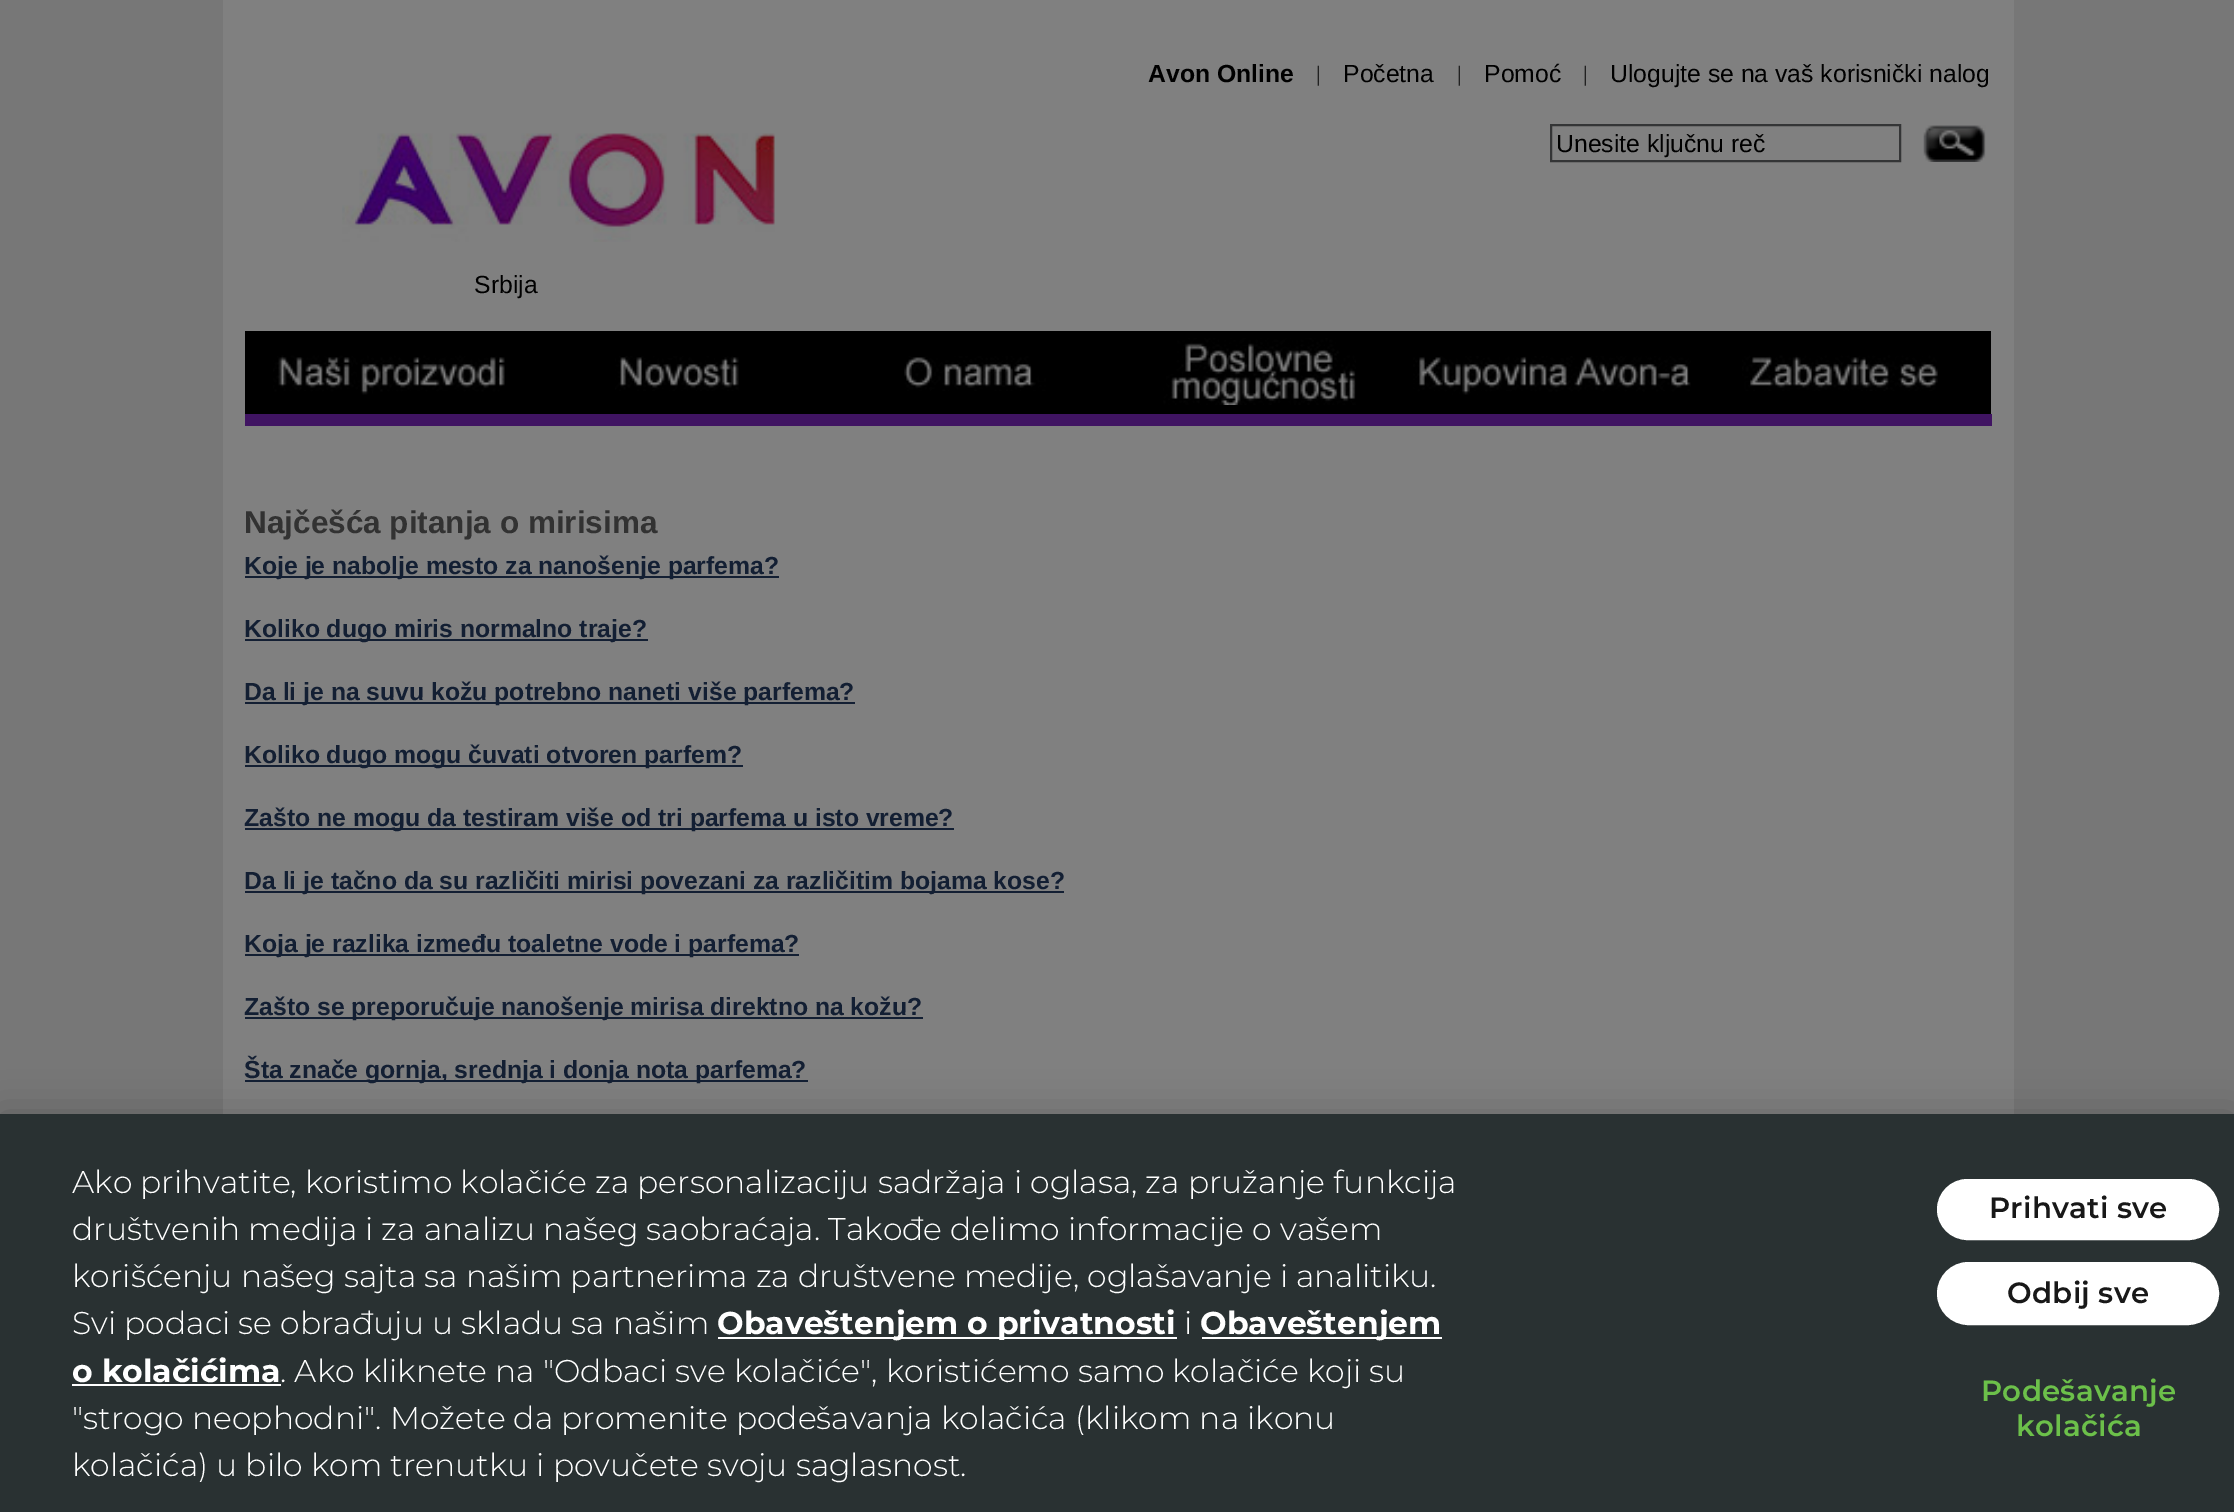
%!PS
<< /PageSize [2234 1512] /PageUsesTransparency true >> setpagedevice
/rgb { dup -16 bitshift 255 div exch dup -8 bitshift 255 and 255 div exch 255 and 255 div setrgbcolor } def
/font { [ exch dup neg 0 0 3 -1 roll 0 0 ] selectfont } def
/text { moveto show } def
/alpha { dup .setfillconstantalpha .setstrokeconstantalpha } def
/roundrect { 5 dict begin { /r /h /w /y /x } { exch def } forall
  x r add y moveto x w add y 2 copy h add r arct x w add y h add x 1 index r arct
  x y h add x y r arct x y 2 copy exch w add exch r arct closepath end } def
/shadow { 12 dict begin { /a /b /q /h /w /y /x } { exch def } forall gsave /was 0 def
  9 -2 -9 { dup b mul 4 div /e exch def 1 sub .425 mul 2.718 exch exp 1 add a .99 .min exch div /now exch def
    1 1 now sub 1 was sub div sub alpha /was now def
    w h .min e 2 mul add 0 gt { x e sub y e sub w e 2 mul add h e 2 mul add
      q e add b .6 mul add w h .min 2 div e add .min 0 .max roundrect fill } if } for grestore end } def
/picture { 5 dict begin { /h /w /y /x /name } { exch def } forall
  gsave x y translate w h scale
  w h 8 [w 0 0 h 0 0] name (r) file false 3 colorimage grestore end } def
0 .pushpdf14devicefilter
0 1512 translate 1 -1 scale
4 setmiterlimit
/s1 { /LiberationSans-Bold 24.75 font 16#000000 rgb } def
/s2 { /LiberationSerif-Regular 22 font 16#000000 rgb } def
/s3 { /LiberationSans-Regular 24.75 font 16#000000 rgb } def
/s4 { /LiberationSans-Bold 31.5 font 16#323232 rgb } def
/s5 { /LiberationSans-Bold 24.75 font 16#131F33 rgb } def
/s6 { /Montserrat-Light 31.5 font 16#FFFFFF rgb } def
/s7 { /Montserrat-Bold 31.5 font 16#FFFFFF rgb } def
16#777777 rgb
0 0 2234 1512 rectfill
16#808080 rgb
1991 0 23 1114 rectfill
223 0 1768 1114 rectfill
(pic1.raw) 342 133 433 109 picture
s1
(Avon Online) 1148 82 text
s2
(|) 1316 81 text
s3
(Početna) 1343 82 text
s2
(|) 1457 81 text
s3
(Pomoć) 1484 82 text
s2
(|) 1583 81 text
s3
(Ulogujte se na vaš korisnički nalog) 1610 82 text
16#343536 rgb
2 setlinewidth
1551 125 349 36 rectstroke
s3
(Unesite ključnu reč) 1556 152 text
(pic2.raw) 1923 125 63 37 picture
(Srbija) 474 293 text
245 331 1746 83 rectfill
(pic3.raw) 273 355 232 40 picture
(pic4.raw) 615 356 124 35 picture
(pic5.raw) 904 356 142 35 picture
(pic6.raw) 1163 338 193 67 picture
(pic7.raw) 1413 356 278 39 picture
(pic8.raw) 1742 355 196 36 picture
16#401462 rgb
245 414 1747 12 rectfill
s4
(Najčešća pitanja o mirisima) 244 533 text
16#131F33 rgb
245 576 534 2 rectfill
s5
(Koje je nabolje mesto za nanošenje parfema?) 244 574 text
245 639 403 2 rectfill
(Koliko dugo miris normalno traje?) 244 637 text
245 702 610 2 rectfill
(Da li je na suvu kožu potrebno naneti više parfema?) 244 700 text
245 765 498 2 rectfill
(Koliko dugo mogu čuvati otvoren parfem?) 244 763 text
245 828 709 2 rectfill
(Zašto ne mogu da testiram više od tri parfema u isto vreme?) 244 826 text
245 891 819 2 rectfill
(Da li je tačno da su različiti mirisi povezani za različitim bojama kose?) 244 889 text
245 954 554 2 rectfill
(Koja je razlika između toaletne vode i parfema?) 244 952 text
245 1017 678 2 rectfill
(Zašto se preporučuje nanošenje mirisa direktno na kožu?) 244 1015 text
245 1080 563 2 rectfill
(Šta znače gornja, srednja i donja nota parfema?) 244 1078 text
16#000000 rgb
0 1114 2234 398 0 20 0.2 shadow
16#293132 rgb
0 1114 2234 398 rectfill
s6
(Ako prihvatite, koristimo kolačiće za personalizaciju sadržaja i oglasa, za pružanje funkcija) 72 1193 text
(društvenih medija i za analizu našeg saobraćaja. Takođe delimo informacije o vašem) 72 1240 text
(korišćenju našeg sajta sa našim partnerima za društvene medije, oglašavanje i analitiku.) 72 1287 text
(Svi podaci se obrađuju u skladu sa našim) 72 1334 text
718 1337 459 2 rectfill
s7
(Obaveštenjem o privatnosti) 717 1334 text
s6
(i) 1184 1334 text
1202 1337 240 2 rectfill
s7
(Obaveštenjem) 1200 1334 text
(o kolačićima) 72 1382 text
72 1384 209 2 rectfill
s6
(. Ako kliknete na "Odbaci sve kolačiće", koristićemo samo kolačiće koji su) 280 1382 text
("strogo neophodni". Možete da promenite podešavanja kolačića \(klikom na ikonu) 72 1429 text
(kolačića\) u bilo kom trenutku i povučete svoju saglasnost.) 72 1476 text
1938 1180 280 59 29.5 roundrect gsave fill grestore
stroke
/Montserrat-SemiBold 29.25 font
16#181818 rgb
1989 1218 moveto 0.25 0 (Prihvati sve) ashow
16#FFFFFF rgb
1938 1263 280 61 30.5 roundrect gsave fill grestore
stroke
16#181818 rgb
2007 1303 moveto 0.25 0 (Odbij sve) ashow
16#6CC04A rgb
1981 1401 moveto 0.25 0 (Podešavanje) ashow
2016 1436 moveto 0.25 0 (kolačića) ashow
.poppdf14devicefilter showpage
